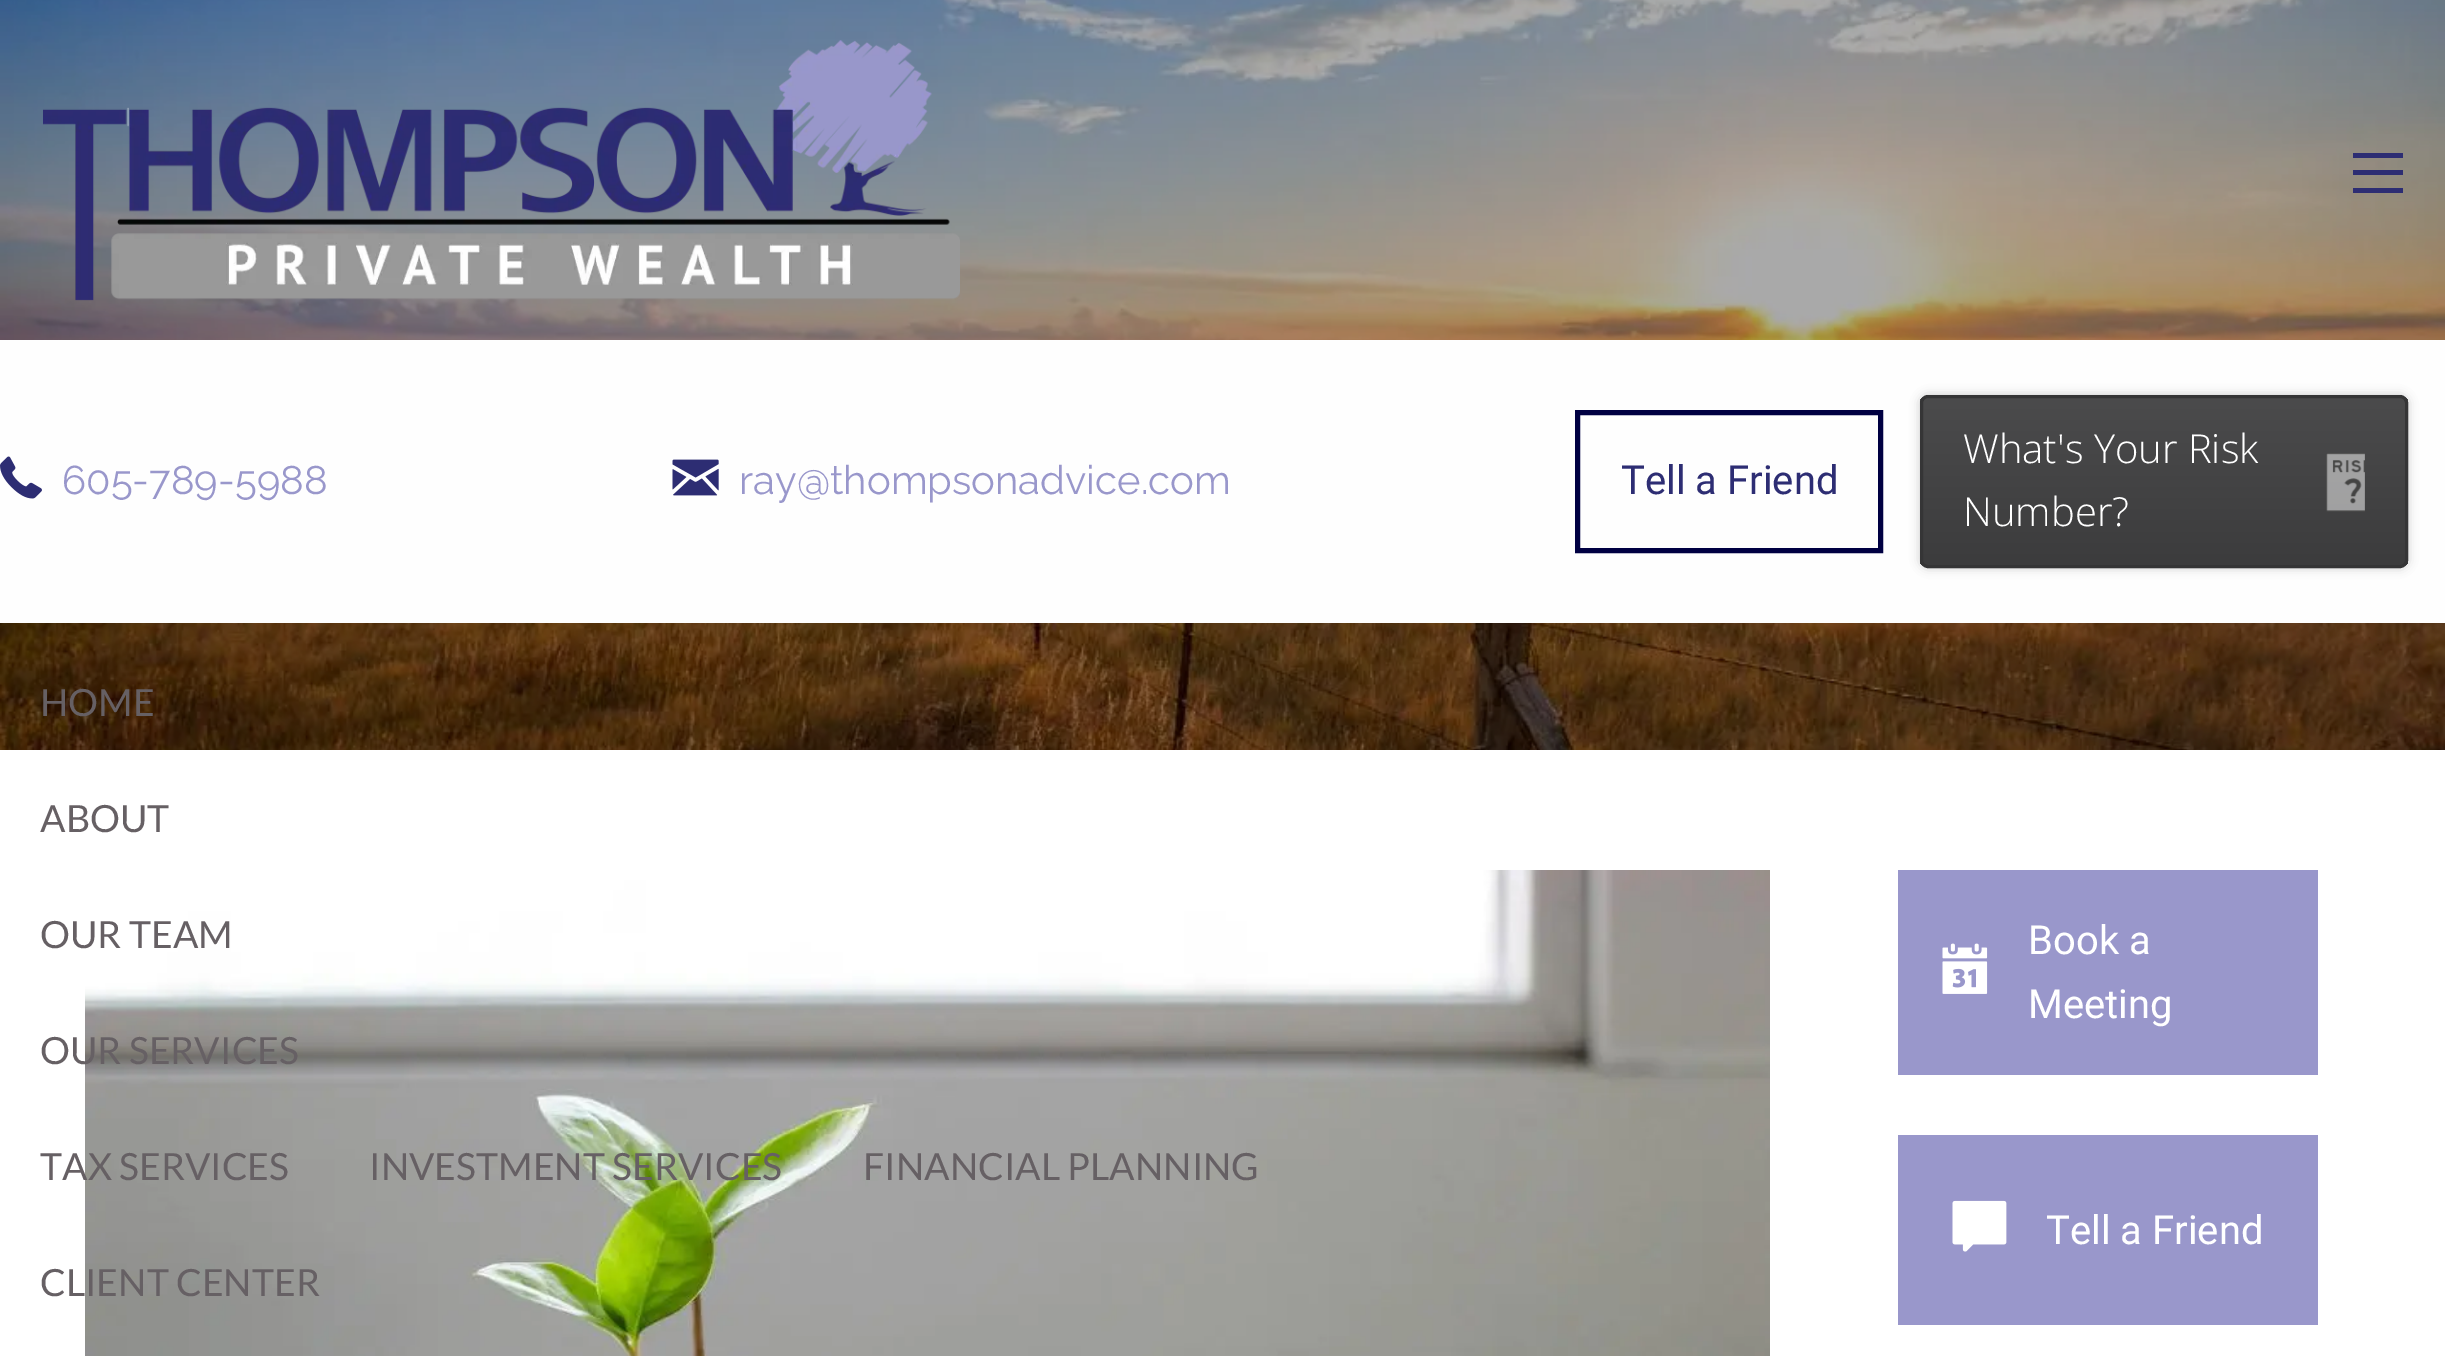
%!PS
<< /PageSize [2445 1356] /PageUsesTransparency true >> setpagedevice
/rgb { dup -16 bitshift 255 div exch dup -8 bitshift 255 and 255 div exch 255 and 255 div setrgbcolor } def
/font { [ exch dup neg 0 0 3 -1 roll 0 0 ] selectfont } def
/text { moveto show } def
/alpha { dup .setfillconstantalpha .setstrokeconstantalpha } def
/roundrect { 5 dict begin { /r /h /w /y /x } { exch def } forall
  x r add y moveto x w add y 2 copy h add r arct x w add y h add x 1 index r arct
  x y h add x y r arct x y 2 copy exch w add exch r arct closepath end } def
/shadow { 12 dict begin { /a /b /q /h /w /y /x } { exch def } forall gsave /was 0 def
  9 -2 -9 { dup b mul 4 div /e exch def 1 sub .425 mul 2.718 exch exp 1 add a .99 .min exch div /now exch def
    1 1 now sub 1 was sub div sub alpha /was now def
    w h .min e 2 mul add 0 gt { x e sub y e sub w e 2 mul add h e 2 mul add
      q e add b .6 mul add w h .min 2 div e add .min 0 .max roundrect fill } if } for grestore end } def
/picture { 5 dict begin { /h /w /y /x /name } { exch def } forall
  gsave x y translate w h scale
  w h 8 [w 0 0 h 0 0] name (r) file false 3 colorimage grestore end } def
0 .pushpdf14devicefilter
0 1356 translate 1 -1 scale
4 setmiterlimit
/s1 { /Raleway-Thin 40 font 16#9997CB rgb } def
/s2 { /Roboto-Regular 40 font 16#2D2D73 rgb } def
/s3 { /OpenSans-Light 40 font 16#FFFFFF rgb } def
/s4 { /Lato-Regular 37.5 font 16#666064 rgb } def
/s5 { /Roboto-Regular 40 font 16#FFFFFF rgb } def
16#FFFFFF rgb
0 0 2445 1356 rectfill
(pic1.raw) 0 0 2445 750 picture
(pic2.raw) 43 40 917 261 picture
16#2D2D73 rgb
2353 188 50 5 rectfill
2353 170 50 5 rectfill
2353 153 50 5 rectfill
16#FEFEFE rgb
0 340 2445 283 rectfill
(pic3.raw) 0 456 42 43 picture
s1
(605-789-5988) 62 494 text
(pic4.raw) 672 459 47 37 picture
(ray@thompsonadvice.com) 739 494 text
16#000042 rgb
5 setlinewidth
1577.5 412.5 303 138 rectstroke
s2
(Tell a Friend) 1621 494 text
16#000000 rgb
1920 395 488 173 8 5 0.2 shadow
gsave
1920 395 488 173 8 roundrect clip newpath
gsave 1920 398 moveto 2408 398 lineto 2408 565 lineto 1920 565 lineto closepath clip newpath
<< /ShadingType 2 /ColorSpace /DeviceRGB /Coords [2164 398 2164 565] /Extend [true true] /Function << /FunctionType 2 /Domain [0 1] /C0 [0.294 0.294 0.298] /C1 [0.235 0.235 0.239] /N 1 >> >> shfill grestore
grestore
16#353536 rgb
3 setlinewidth
1921.5 396.5 485 170 6.5 roundrect stroke
s3
(What's Your Risk) 1963 463 text
(Number?) 1963 526 text
(pic5.raw) 2326 453 39 59 picture
s4
(HOME) 40 716 text
(ABOUT) 40 832 text
(pic6.raw) 85 870 1685 486 picture
(OUR TEAM) 40 948 text
(OUR SERVICES) 40 1064 text
(TAX SERVICES) 40 1180 text
(INVESTMENT SERVICES) 369 1180 text
(FINANCIAL PLANNING) 863 1180 text
(CLIENT CENTER) 40 1296 text
16#9997CB rgb
1898 870 420 205 rectfill
s5
(Book a) 2028 954 text
(pic7.raw) 1942 943 46 51 picture
(Meeting) 2028 1018 text
16#9997CB rgb
1898 1135 420 190 rectfill
(pic8.raw) 1952 1200 55 52 picture
s5
(Tell a Friend) 2046 1244 text
.poppdf14devicefilter showpage
